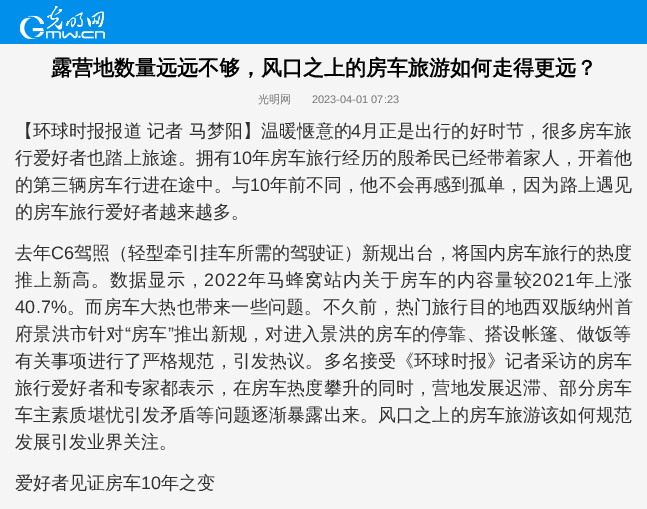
%!PS
<< /PageSize [647 509] >> setpagedevice
/rgb { dup -16 bitshift 255 div exch dup -8 bitshift 255 and 255 div exch 255 and 255 div setrgbcolor } def
/font { [ exch dup neg 0 0 3 -1 roll 0 0 ] selectfont } def
/text { moveto show } def
/picture { 5 dict begin { /h /w /y /x /name } { exch def } forall
  gsave x y translate w h scale
  w h 8 [w 0 0 h 0 0] name (r) file false 3 colorimage grestore end } def
0 509 translate 1 -1 scale
4 setmiterlimit
/s1 { /WenQuanYiZenHei-Bold 21 font 16#000000 rgb } def
/s2 { /WenQuanYiZenHei-Medium 11 font 16#747474 rgb } def
/s3 { /LiberationSans-Regular 11 font 16#747474 rgb } def
/s4 { /WenQuanYiZenHei-Medium 18 font 16#303030 rgb } def
/s5 { /LiberationSans-Regular 18 font 16#303030 rgb } def
16#F5F5F5 rgb
0 0 647 509 rectfill
16#018FEC rgb
0 0 647 44 rectfill
(pic1.raw) 20 6 85 33 picture
s1
(露营地数量远远不够，风口之上的房车旅游如何走得更远？) 51 75 text
s2
(光明网) 258 103 text
s3
(2023-04-01 07:23) 312 103 text
/WenQuanYiZenHei-Medium 18 font
16#303030 rgb
15 137 moveto 0.1 0 (【环球时报报道 记者 马梦阳】温暖惬意的) ashow
/LiberationSans-Regular 18 font
351 137 moveto 0.1 0 (4) ashow
/WenQuanYiZenHei-Medium 18 font
361 137 moveto 0.1 0 (月正是出行的好时节，很多房车旅) ashow
15 164 moveto 0.1 0 (行爱好者也踏上旅途。拥有) ashow
/LiberationSans-Regular 18 font
232 164 moveto 0.1 0 (10) ashow
/WenQuanYiZenHei-Medium 18 font
252 164 moveto 0.1 0 (年房车旅行经历的殷希民已经带着家人，开着他) ashow
15 191 moveto 0.1 0 (的第三辆房车行进在途中。与) ashow
/LiberationSans-Regular 18 font
250 191 moveto 0.1 0 (10) ashow
/WenQuanYiZenHei-Medium 18 font
270 191 moveto 0.1 0 (年前不同，他不会再感到孤单，因为路上遇见) ashow
(的房车旅行爱好者越来越多。) 15 218 text
(去年) 15 259 text
s5
(C6) 51 259 text
s4
(驾照（轻型牵引挂车所需的驾驶证）新规出台，将国内房车旅行的热度) 74 259 text
15 286 moveto 1 0 (推上新高。数据显示，) ashow
/LiberationSans-Regular 18 font
204 286 moveto 1 0 (2022) ashow
/WenQuanYiZenHei-Medium 18 font
248 286 moveto 1 0 (年马蜂窝站内关于房车的内容量较) ashow
/LiberationSans-Regular 18 font
532 286 moveto 1 0 (2021) ashow
/WenQuanYiZenHei-Medium 18 font
576 286 moveto 1 0 (年上涨) ashow
/LiberationSans-Regular 18 font
15 313 moveto 0.25 0 (40.7%) ashow
/WenQuanYiZenHei-Medium 18 font
67 313 moveto 0.25 0 (。而房车大热也带来一些问题。不久前，热门旅行目的地西双版纳州首) ashow
15 340 moveto 0.3 0 (府景洪市针对) ashow
/LiberationSans-Regular 18 font
125 340 moveto 0.3 0 (“) ashow
/WenQuanYiZenHei-Medium 18 font
131 340 moveto 0.3 0 (房车) ashow
/LiberationSans-Regular 18 font
168 340 moveto 0.3 0 (”) ashow
/WenQuanYiZenHei-Medium 18 font
174 340 moveto 0.3 0 (推出新规，对进入景洪的房车的停靠、搭设帐篷、做饭等) ashow
15 367 moveto 0.15 0 (有关事项进行了严格规范，引发热议。多名接受《环球时报》记者采访的房车) ashow
15 394 moveto 0.15 0 (旅行爱好者和专家都表示，在房车热度攀升的同时，营地发展迟滞、部分房车) ashow
15 421 moveto 0.15 0 (车主素质堪忧引发矛盾等问题逐渐暴露出来。风口之上的房车旅游该如何规范) ashow
(发展引发业界关注。) 15 448 text
(爱好者见证房车) 15 489 text
s5
(10) 141 489 text
s4
(年之变) 161 489 text
showpage
